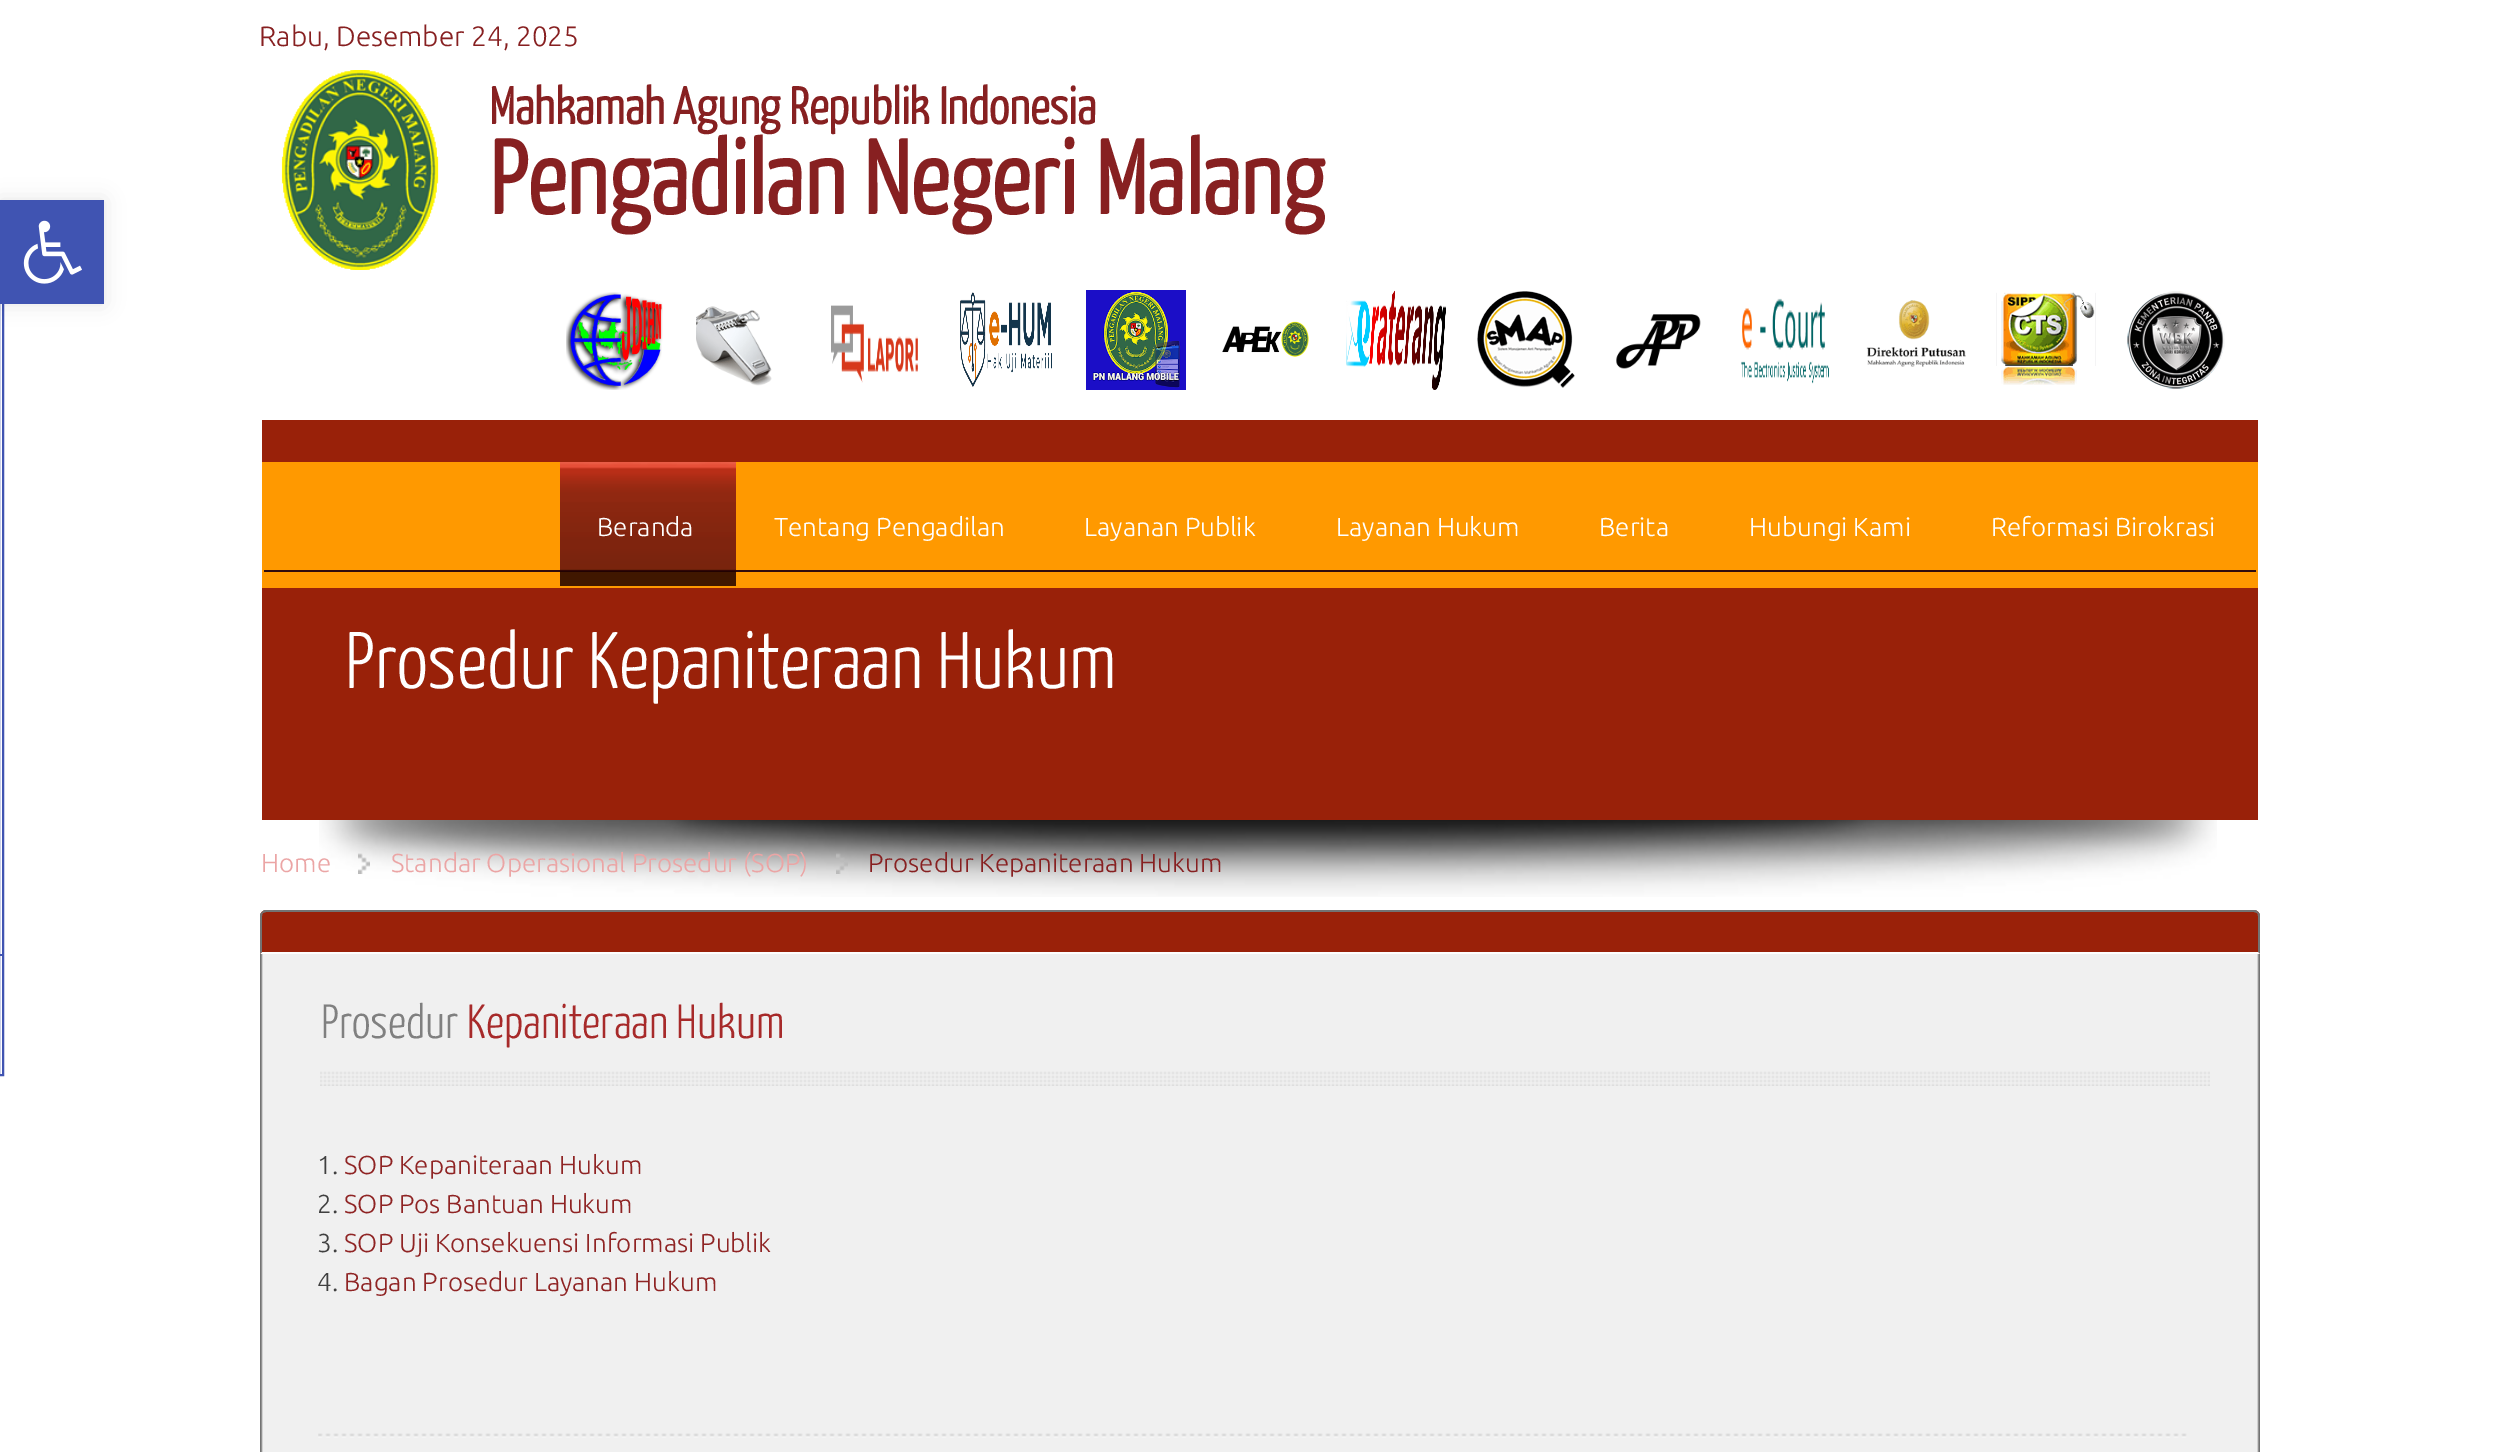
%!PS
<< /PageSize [2517 1452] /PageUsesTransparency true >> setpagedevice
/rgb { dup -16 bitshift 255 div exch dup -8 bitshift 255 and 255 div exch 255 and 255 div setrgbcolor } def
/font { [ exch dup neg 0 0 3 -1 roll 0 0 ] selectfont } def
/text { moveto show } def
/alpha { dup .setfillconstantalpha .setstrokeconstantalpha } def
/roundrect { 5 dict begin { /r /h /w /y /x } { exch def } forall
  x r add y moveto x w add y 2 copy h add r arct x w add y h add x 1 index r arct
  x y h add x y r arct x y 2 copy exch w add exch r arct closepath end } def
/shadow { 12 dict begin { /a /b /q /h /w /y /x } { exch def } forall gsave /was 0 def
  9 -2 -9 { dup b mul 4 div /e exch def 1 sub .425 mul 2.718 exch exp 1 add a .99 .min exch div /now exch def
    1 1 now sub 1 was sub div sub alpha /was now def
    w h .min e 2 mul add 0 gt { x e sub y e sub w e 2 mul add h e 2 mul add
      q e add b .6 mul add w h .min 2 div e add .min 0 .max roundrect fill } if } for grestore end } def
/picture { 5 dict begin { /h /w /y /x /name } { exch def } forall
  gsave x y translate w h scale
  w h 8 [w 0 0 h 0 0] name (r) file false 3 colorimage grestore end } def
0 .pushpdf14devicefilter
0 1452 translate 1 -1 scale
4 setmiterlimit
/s1 { /Ubuntu-Light 28 font 16#872021 rgb } def
/s2 { /YanoneKaffeesatz-Bold 52 font 16#872021 rgb } def
/s3 { /YanoneKaffeesatz-Bold 104 font 16#872021 rgb } def
/s4 { /Ubuntu-Light 26 font 16#FFFFFF rgb } def
/s5 { /YanoneKaffeesatz-Light 80 font 16#FFFFFF rgb } def
/s6 { /Ubuntu-Light 26 font 16#EBA5A5 rgb } def
/s7 { /Ubuntu-Light 26 font 16#872021 rgb } def
/s8 { /YanoneKaffeesatz-Light 48 font 16#808080 rgb } def
/s9 { /YanoneKaffeesatz-Light 48 font 16#A72A2A rgb } def
/s10 { /Ubuntu-Light 26 font 16#404040 rgb } def
/s11 { /Ubuntu-Light 26 font 16#8F2424 rgb } def
16#FFFFFF rgb
0 0 2517 1452 rectfill
16#4054B2 rgb
2 setlinewidth
-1 201 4 874 rectstroke
16#000000 rgb
0 200 104 104 0 10 0.1 shadow
16#4054B2 rgb
0 200 104 104 rectfill
(pic1.raw) 23 220 59 64 picture
0 954 2 2 rectfill
s1
(Rabu, Desember 24, 2025) 259 46 text
(pic2.raw) 281 70 158 200 picture
s2
(Mahkamah Agung Republik Indonesia) 489 124 text
s3
(Pengadilan Negeri Malang) 489 214 text
(pic3.raw) 566 292 97 98 picture
(pic4.raw) 696 306 76 80 picture
(pic5.raw) 831 305 87 78 picture
(pic6.raw) 960 292 92 95 picture
(pic7.raw) 1086 290 100 100 picture
(pic8.raw) 1222 321 87 36 picture
(pic9.raw) 1346 290 100 100 picture
(pic10.raw) 1477 291 98 97 picture
(pic11.raw) 1616 314 85 55 picture
(pic12.raw) 1741 298 88 86 picture
(pic13.raw) 1866 300 100 67 picture
(pic14.raw) 1996 292 100 93 picture
(pic15.raw) 2127 291 98 98 picture
16#992109 rgb
262 420 1996 400 rectfill
16#FF9900 rgb
262 462 1996 126 rectfill
16#300C0D rgb
264 570 1992 2 rectfill
(pic16.raw) 560 462 176 124 picture
s4
(Beranda) 597 536 text
(Tentang Pengadilan) 774 536 text
(Layanan Publik) 1084 536 text
(Layanan Hukum) 1336 536 text
(Berita) 1599 536 text
(Hubungi Kami) 1749 536 text
(Reformasi Birokrasi) 1991 536 text
s5
(Prosedur Kepaniteraan Hukum) 345 688 text
(pic17.raw) 319 820 1898 77 picture
(pic18.raw) 358 853 12 21 picture
s6
(Home) 261 872 text
(pic19.raw) 836 853 12 21 picture
(Standar Operasional Prosedur \(SOP\)) 391 872 text
s7
(Prosedur Kepaniteraan Hukum) 868 872 text
(pic20.raw) 260 910 2000 44 picture
16#737373 rgb
266 910 moveto 264 910 263 911 262 912 curveto 263 913 lineto 266 912 lineto 2254 912 lineto 2257 913 lineto 2258 912 lineto 2257 911 2256 910 2254 910 curveto closepath fill
2260 954 moveto 2260 916 lineto 2260 914 2259 913 2258 912 curveto 2257 913 lineto 2258 914 2258 915 2258 916 curveto 2258 952 lineto closepath fill
16#FEFEFE rgb
2260 954 moveto 2258 952 lineto 262 952 lineto 260 954 lineto closepath fill
16#737373 rgb
260 954 moveto 262 952 lineto 262 916 lineto 262 915 262 914 263 913 curveto 262 912 lineto 261 913 260 914 260 916 curveto closepath fill
(pic21.raw) 260 954 1998 498 picture
(pic22.raw) 2258 954 2 498 picture
(pic23.raw) 320 1071 1890 15 picture
s8
(Prosedur) 321 1038 text
s9
(Kepaniteraan Hukum) 467 1038 text
s10
(1.) 317 1174 text
s11
(SOP Kepaniteraan Hukum) 344 1174 text
s10
(2.) 317 1213 text
s11
(SOP Pos Bantuan Hukum) 344 1213 text
s10
(3.) 317 1252 text
s11
(SOP Uji Konsekuensi Informasi Publik) 344 1252 text
s10
(4.) 317 1291 text
s11
(Bagan Prosedur Layanan Hukum) 344 1291 text
(pic24.raw) 318 1433 1869 5 picture
.poppdf14devicefilter showpage
